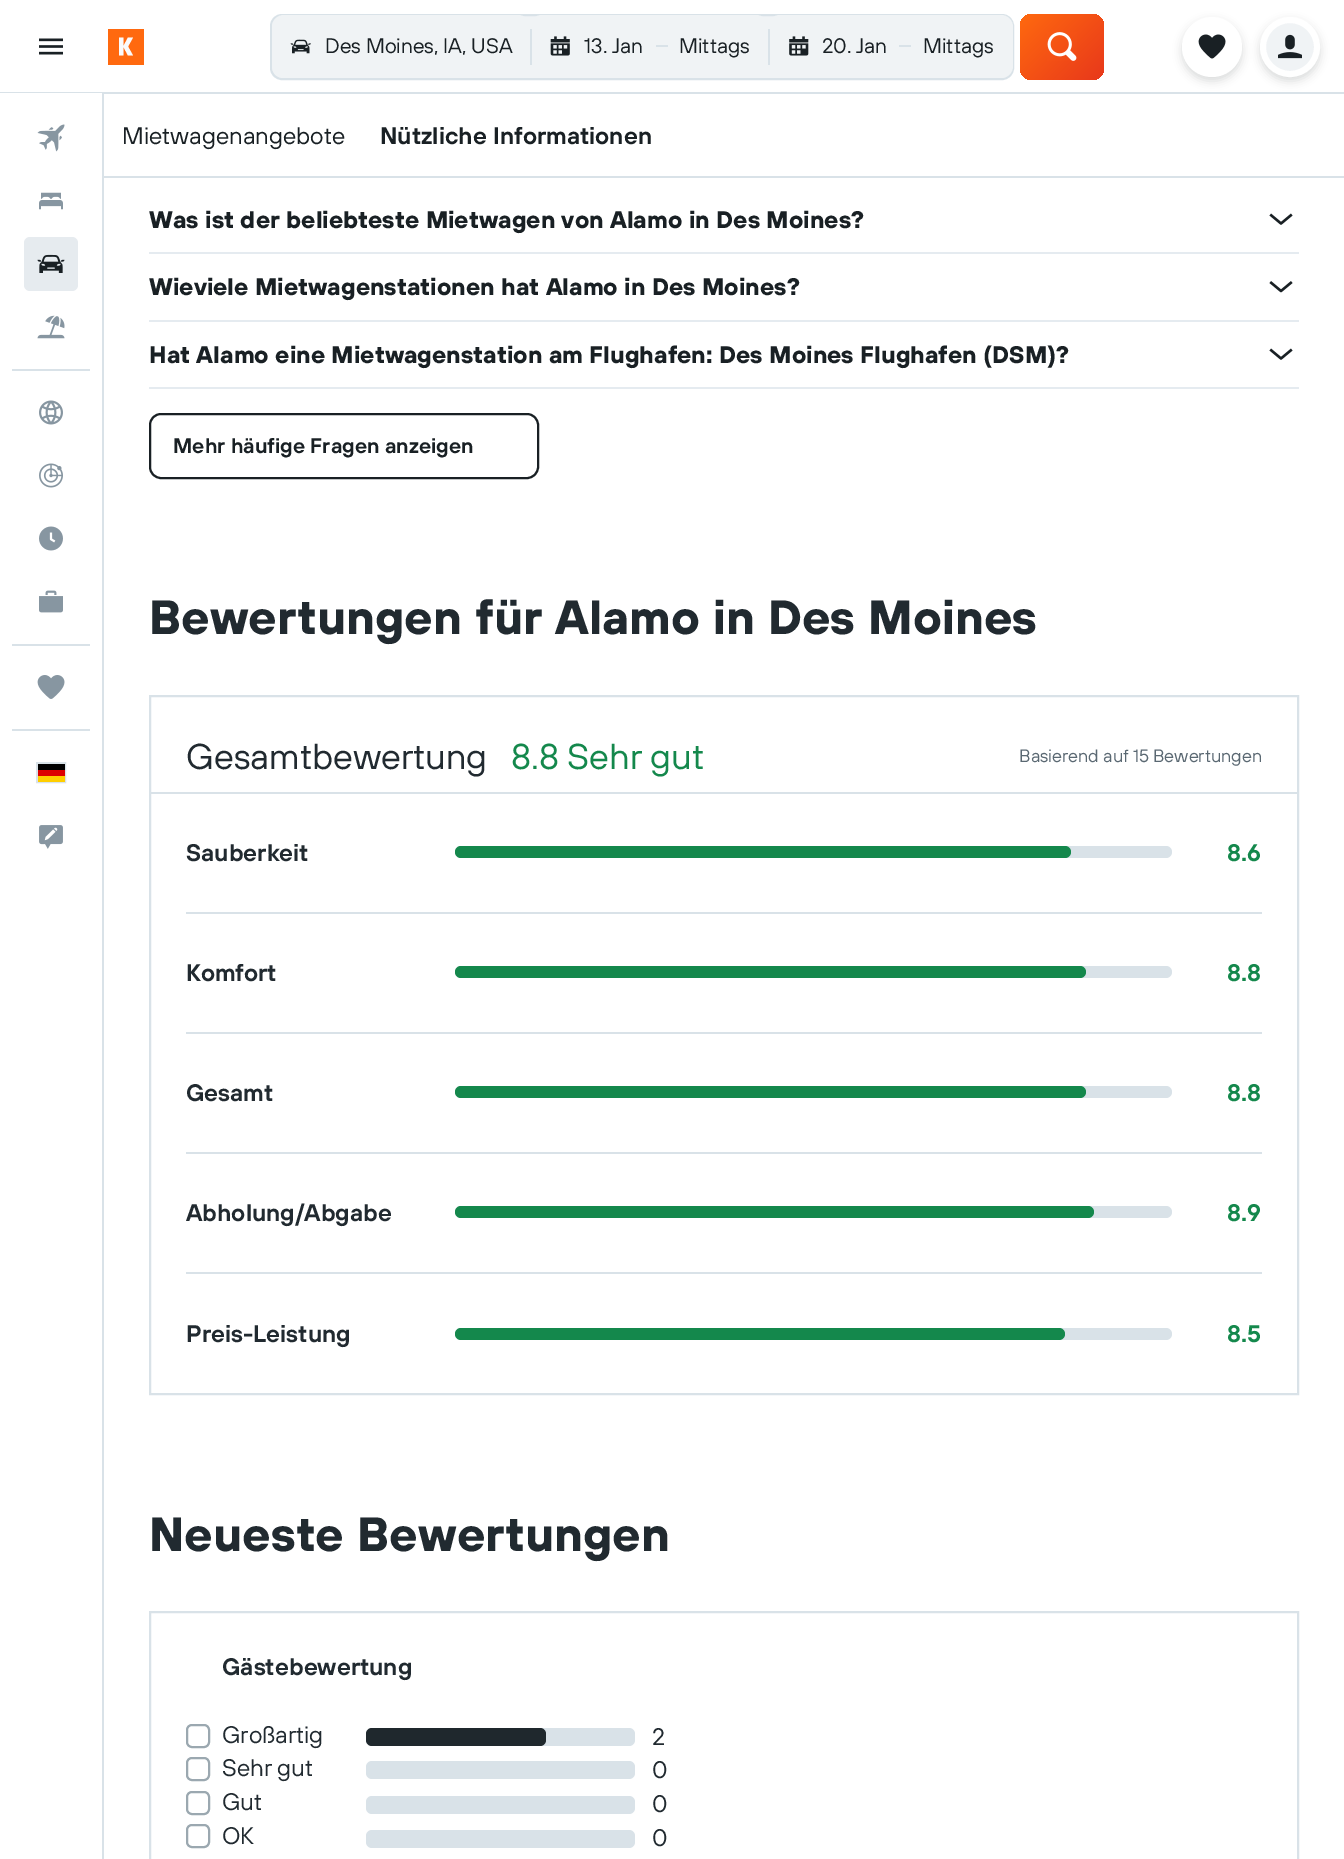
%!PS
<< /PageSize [1344 1859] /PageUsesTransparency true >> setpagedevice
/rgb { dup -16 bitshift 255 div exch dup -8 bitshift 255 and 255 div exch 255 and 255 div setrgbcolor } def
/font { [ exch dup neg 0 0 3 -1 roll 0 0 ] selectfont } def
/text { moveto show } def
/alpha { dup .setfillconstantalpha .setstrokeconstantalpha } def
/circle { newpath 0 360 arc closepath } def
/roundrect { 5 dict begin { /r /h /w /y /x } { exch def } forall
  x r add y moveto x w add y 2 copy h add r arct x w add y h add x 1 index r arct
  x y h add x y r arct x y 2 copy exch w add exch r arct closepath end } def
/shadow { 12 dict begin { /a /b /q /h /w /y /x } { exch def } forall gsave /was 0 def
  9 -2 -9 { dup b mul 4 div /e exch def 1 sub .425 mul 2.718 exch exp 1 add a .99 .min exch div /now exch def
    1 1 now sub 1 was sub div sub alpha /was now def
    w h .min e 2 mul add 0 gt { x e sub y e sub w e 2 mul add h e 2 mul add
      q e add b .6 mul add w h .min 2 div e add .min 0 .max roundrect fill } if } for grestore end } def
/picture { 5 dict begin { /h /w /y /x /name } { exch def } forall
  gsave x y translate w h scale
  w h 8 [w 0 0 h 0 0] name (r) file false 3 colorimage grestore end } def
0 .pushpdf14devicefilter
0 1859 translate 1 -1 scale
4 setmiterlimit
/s1 { /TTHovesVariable-Regular 21 font 16#192024 rgb } def
/s2 { /TTHovesVariable-Regular 24 font 16#192024 rgb } def
/s3 { /TTHovesVariable-SemiBold 24 font 16#192024 rgb } def
/s4 { /TTHovesVariable-Bold 24 font 16#192024 rgb } def
/s5 { /TTHovesVariable-SemiBold 21 font 16#192024 rgb } def
/s6 { /TTHovesVariable-Bold 48 font 16#212A30 rgb } def
/s7 { /TTHovesVariable-Regular 36 font 16#212A30 rgb } def
/s8 { /TTHovesVariable-Regular 36 font 16#14884C rgb } def
/s9 { /TTHovesVariable-Regular 18 font 16#5A6872 rgb } def
/s10 { /TTHovesVariable-SemiBold 24 font 16#212A30 rgb } def
/s11 { /TTHovesVariable-SemiBold 24 font 16#14884C rgb } def
/s12 { /TTHovesVariable-Regular 24 font 16#212A30 rgb } def
16#FFFFFF rgb
0 0 1344 1859 rectfill
16#D9E2E8 rgb
0 92 1344 2 rectfill
(pic1.raw) 39 38 24 17 picture
16#FF690F rgb
108 29 36 36 rectfill
16#FAFAFC rgb
123.5 46 moveto 123.5 37.5 lineto 119 37.5 lineto 119 55.5 lineto 123.5 55.5 lineto 123.5 47 lineto 128 55.5 lineto 133 55.5 lineto 128 46.5 lineto 133 37.5 lineto 128 37.5 lineto closepath eofill
16#F0F3F5 rgb
271 15 742 64 11 roundrect gsave fill grestore
16#D9E2E8 rgb
2 setlinewidth
stroke
16#F0F3F5 rgb
272 15 258 63 12 roundrect fill
(pic2.raw) 290 39 21 15 picture
s1
(Des Moines, IA, USA) 325 53 text
16#F0F3F5 rgb
530 15 238 63 12 roundrect fill
16#D9E2E8 rgb
530 29 2 36 rectfill
(pic3.raw) 550 36 20 20 picture
s1
(13. Jan) 584 53 text
16#D9E2E8 rgb
656 45 12 2 rectfill
s1
(Mittags) 679 53 text
16#F0F3F5 rgb
768 15 245 63 12 roundrect fill
16#D9E2E8 rgb
768 29 2 36 rectfill
(pic4.raw) 789 36 20 20 picture
s1
(20. Jan) 822 53 text
16#D9E2E8 rgb
899 45 12 2 rectfill
s1
(Mittags) 923 53 text
gsave 1020 14 84 66 12 roundrect clip newpath
<< /ShadingType 2 /ColorSpace /DeviceRGB /Coords [1025 9 1100 84] /Extend [true true] /Function << /FunctionType 2 /Domain [0 1] /C0 [1 0.412 0.059] /C1 [0.91 0.22 0.106] /N 1 >> >> shfill grestore
(pic5.raw) 1047 32 30 29 picture
1182 21 60 60 30 4.5 0.16 shadow
16#FFFFFF rgb
1212 47 30 circle fill
(pic6.raw) 1198 34 28 25 picture
16#192024 rgb
1260 21 60 60 30 4.5 0.16 shadow
16#F0F3F5 rgb
1290 47 27 circle gsave fill grestore
16#FFFFFF rgb
6 setlinewidth
stroke
(pic7.raw) 1278 34 24 25 picture
0 93 102 1 rectfill
16#D9E2E8 rgb
102 93 2 1766 rectfill
(pic8.raw) 37 124 28 28 picture
(pic9.raw) 39 192 24 18 picture
16#E6EBEF rgb
24 237 54 54 6 roundrect fill
(pic10.raw) 37 254 28 19 picture
(pic11.raw) 37 315 28 24 picture
16#D9E2E8 rgb
12 369 78 2 rectfill
(pic12.raw) 39 400 24 25 picture
(pic13.raw) 39 463 24 25 picture
(pic14.raw) 39 526 24 25 picture
(pic15.raw) 39 590 24 23 picture
12 644 78 2 rectfill
(pic16.raw) 37 675 28 24 picture
12 729 78 2 rectfill
2 setlinewidth
37 763 28 19 rectstroke
16#FFCE00 rgb
38 776 27 6 rectfill
16#000000 rgb
38 764 27 6 rectfill
16#DD0000 rgb
38 770 27 6 rectfill
(pic17.raw) 39 825 24 24 picture
16#D9E2E8 rgb
104 176 1240 2 rectfill
s2
(Mietwagenangebote) 122 144 text
s3
(Nützliche Informationen) 380 144 text
16#E5EBF0 rgb
149 252 1150 2 rectfill
s4
(Was ist der beliebteste Mietwagen von Alamo in Des Moines?) 149 228 text
(pic18.raw) 1269 213 24 12 picture
16#E5EBF0 rgb
149 320 1150 2 rectfill
s4
(Wieviele Mietwagenstationen hat Alamo in Des Moines?) 149 295 text
(pic19.raw) 1269 281 24 12 picture
16#E5EBF0 rgb
149 387 1150 2 rectfill
s4
(Hat Alamo eine Mietwagenstation am Flughafen: Des Moines Flughafen \(DSM\)?) 149 363 text
(pic18.raw) 1269 348 24 12 picture
150 414 388 64 11 roundrect stroke
s5
(Mehr häufige Fragen anzeigen) 173 453 text
s6
(Bewertungen für Alamo in Des Moines) 149 634 text
16#D9E2E8 rgb
150 696 1148 698 rectstroke
150 792 1148 2 rectfill
s7
(Gesamtbewertung) 186 769 text
s8
(8.8 Sehr gut) 511 769 text
s9
(Basierend auf 15 Bewertungen) 1019 762 text
16#D9E2E8 rgb
186 912 1076 2 rectfill
s10
(Sauberkeit) 186 861 text
16#D9E2E8 rgb
455 846 717 12 6 roundrect fill
16#14884C rgb
455 846 616 12 6 roundrect fill
(8.6) 1227 861 text
16#D9E2E8 rgb
186 1032 1076 2 rectfill
s10
(Komfort) 186 981 text
16#D9E2E8 rgb
455 966 717 12 6 roundrect fill
16#14884C rgb
455 966 631 12 6 roundrect fill
(8.8) 1227 981 text
16#D9E2E8 rgb
186 1152 1076 2 rectfill
s10
(Gesamt) 186 1101 text
16#D9E2E8 rgb
455 1086 717 12 6 roundrect fill
16#14884C rgb
455 1086 631 12 6 roundrect fill
(8.8) 1227 1101 text
16#D9E2E8 rgb
186 1272 1076 2 rectfill
s10
(Abholung/Abgabe) 186 1221 text
16#D9E2E8 rgb
455 1206 717 12 6 roundrect fill
16#14884C rgb
455 1206 639 12 6 roundrect fill
(8.9) 1227 1221 text
s10
(Preis-Leistung) 186 1342 text
16#D9E2E8 rgb
455 1328 717 12 6 roundrect fill
16#14884C rgb
455 1328 610 12 6 roundrect fill
(8.5) 1227 1342 text
s6
(Neueste Bewertungen) 149 1551 text
16#D9E2E8 rgb
150 1612 1148 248 rectstroke
s10
(Gästebewertung) 222 1675 text
16#9BA8B0 rgb
187 1725 22 22 5 roundrect stroke
s12
(Großartig) 222 1743 text
16#D9E2E8 rgb
366 1728 269 18 6 roundrect fill
16#1F282D rgb
366 1728 180 18 6 roundrect fill
s12
(2) 652 1745 text
16#9BA8B0 rgb
187 1758 22 22 5 roundrect stroke
s12
(Sehr gut) 222 1776 text
16#D9E2E8 rgb
366 1761 269 18 6 roundrect fill
s12
(0) 652 1778 text
16#9BA8B0 rgb
187 1792 22 22 5 roundrect stroke
s12
(Gut) 222 1810 text
16#D9E2E8 rgb
366 1796 269 18 6 roundrect fill
s12
(0) 652 1812 text
16#9BA8B0 rgb
187 1825 22 22 5 roundrect stroke
s12
(OK) 222 1844 text
16#D9E2E8 rgb
366 1830 269 18 6 roundrect fill
s12
(0) 652 1846 text
.poppdf14devicefilter showpage
